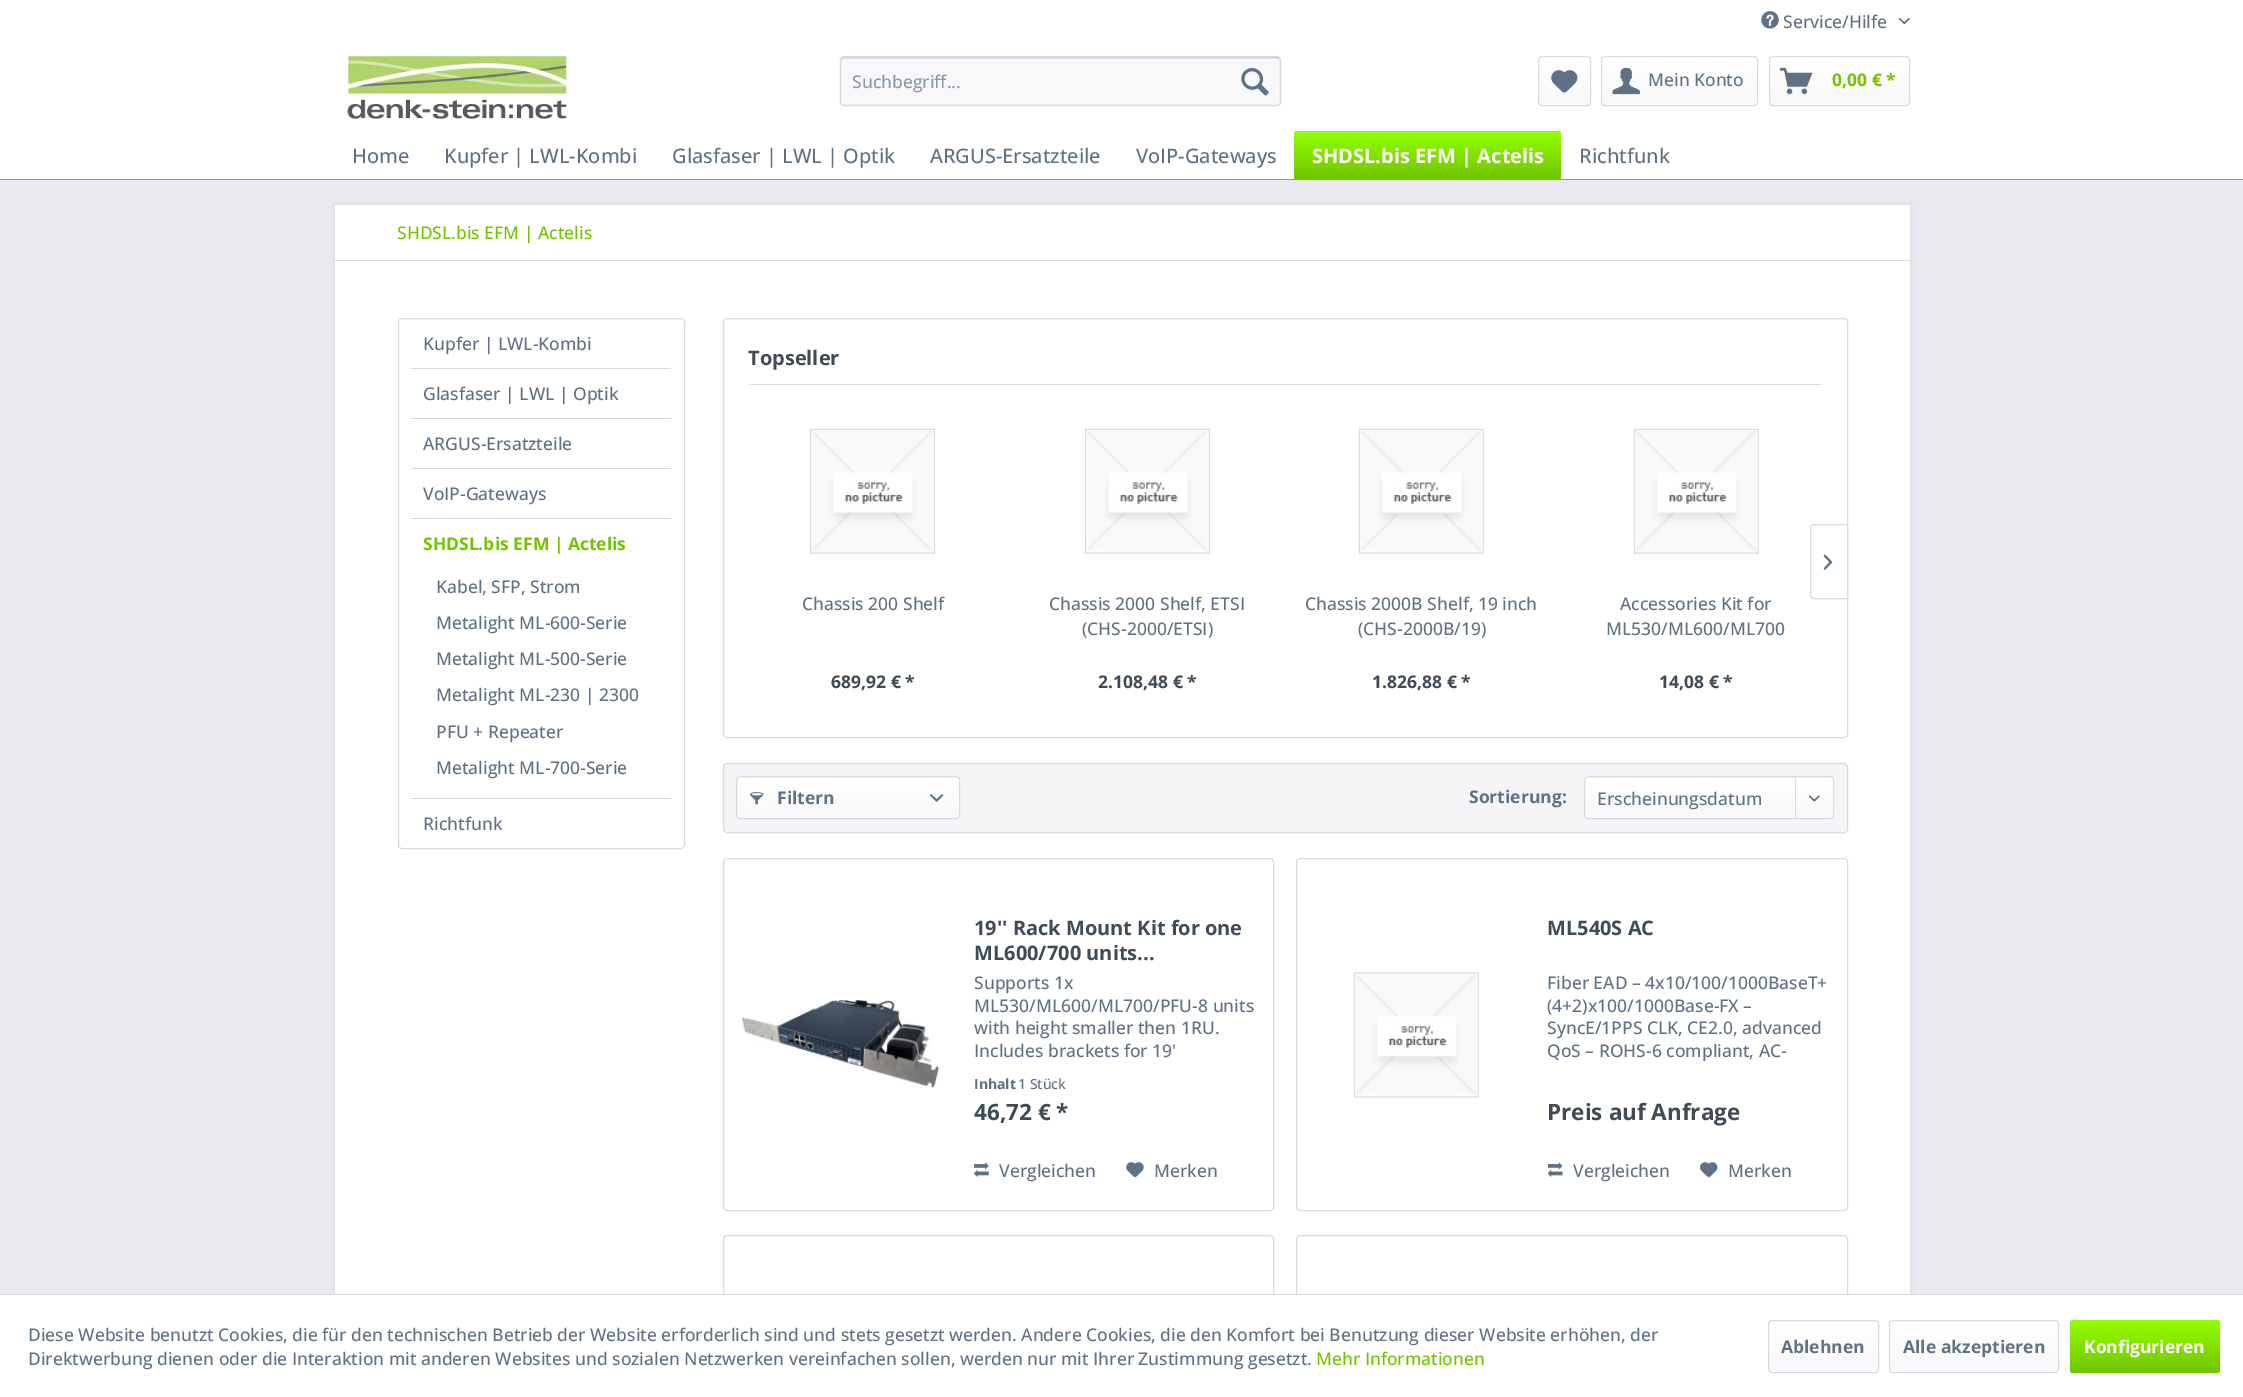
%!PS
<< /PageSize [2243 1397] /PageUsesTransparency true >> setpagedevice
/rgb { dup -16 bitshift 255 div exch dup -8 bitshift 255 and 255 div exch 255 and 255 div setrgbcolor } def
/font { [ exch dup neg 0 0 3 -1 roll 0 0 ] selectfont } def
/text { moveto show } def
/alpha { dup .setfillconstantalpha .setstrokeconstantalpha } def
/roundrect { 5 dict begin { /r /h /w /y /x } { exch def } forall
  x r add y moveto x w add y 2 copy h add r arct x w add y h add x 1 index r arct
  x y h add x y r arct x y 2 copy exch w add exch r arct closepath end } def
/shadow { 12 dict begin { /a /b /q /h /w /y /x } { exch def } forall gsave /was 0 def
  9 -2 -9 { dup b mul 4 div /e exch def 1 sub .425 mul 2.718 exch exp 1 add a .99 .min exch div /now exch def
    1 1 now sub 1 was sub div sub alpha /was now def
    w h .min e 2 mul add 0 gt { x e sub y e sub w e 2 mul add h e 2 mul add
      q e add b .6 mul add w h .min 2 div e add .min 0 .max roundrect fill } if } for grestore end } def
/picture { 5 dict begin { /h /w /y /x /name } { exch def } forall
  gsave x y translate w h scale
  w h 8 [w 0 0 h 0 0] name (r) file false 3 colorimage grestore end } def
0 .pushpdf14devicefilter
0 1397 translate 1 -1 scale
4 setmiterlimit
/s1 { /OpenSans-Medium 17.5 font 16#5F7285 rgb } def
/s2 { /OpenSans-Medium 17.5 font 16#8798A9 rgb } def
/s3 { /OpenSans-Bold 17.5 font 16#72C400 rgb } def
/s4 { /OpenSans-Medium 20 font 16#5F7285 rgb } def
/s5 { /OpenSans-Bold 20 font 16#FFFFFF rgb } def
/s6 { /OpenSans-Medium 17.5 font 16#72C400 rgb } def
/s7 { /OpenSans-Bold 20 font 16#3F4C58 rgb } def
/s8 { /OpenSans-Bold 17.5 font 16#3F4C58 rgb } def
/s9 { /OpenSans-Bold 17.5 font 16#5F7285 rgb } def
/s10 { /OpenSans-Bold 14 font 16#5F7285 rgb } def
/s11 { /OpenSans-Medium 14 font 16#5F7285 rgb } def
/s12 { /OpenSans-Bold 22.5 font 16#3F4C58 rgb } def
/s13 { /OpenSans-Bold 17.5 font 16#FFFFFF rgb } def
16#E9E9F0 rgb
0 0 2243 1397 rectfill
16#FFFFFF rgb
0 0 2243 179 rectfill
(pic1.raw) 1761 11 18 18 picture
s1
(Service/Hilfe) 1783 28 text
(pic2.raw) 1898 17 12 8 picture
(pic3.raw) 347 56 220 63 picture
16#F8F8FA rgb
840 56 441 50 4 roundrect fill
16#DADAE5 rgb
844 59 moveto 1278 59 lineto 1279 59 1280 60 1280 61 curveto 1280 59 1279 58 1278 58 curveto 844 58 lineto 842 59 lineto 841 61 lineto 841 60 842 59 844 59 curveto closepath fill
16#CBCBDB rgb
1.2 setlinewidth
841.5 58 moveto 844 57 lineto 1277.5 57 lineto 1279.5 58 lineto stroke
16#DADAE5 rgb
1279.5 58 moveto 1280.5 60 lineto 1280.5 102.5 lineto 1279.5 104.5 lineto 1277.5 105.5 lineto 844 105.5 lineto 841.5 104.5 lineto 840.5 102.5 lineto 840.5 60 lineto 841.5 58 lineto stroke
s2
(Suchbegriff...) 852 88 text
(pic4.raw) 1241 68 28 28 picture
gsave 1539 58 51 47 2.5 roundrect clip newpath
<< /ShadingType 2 /ColorSpace /DeviceRGB /Coords [1564 58 1564 105] /Extend [true true] /Function << /FunctionType 2 /Domain [0 1] /C0 [1 1 1] /C1 [0.973 0.973 0.98] /N 1 >> >> shfill grestore
16#DADAE5 rgb
1 setlinewidth
1538.5 56.5 52 49 3.5 roundrect stroke
(pic5.raw) 1551 70 27 23 picture
gsave 1603 58 153 47 2.5 roundrect clip newpath
<< /ShadingType 2 /ColorSpace /DeviceRGB /Coords [1679 57 1679 105] /Extend [true true] /Function << /FunctionType 2 /Domain [0 1] /C0 [1 1 1] /C1 [0.973 0.973 0.98] /N 1 >> >> shfill grestore
1601.5 56.5 156 49 3.5 roundrect stroke
(pic6.raw) 1612 67 28 28 picture
s1
(Mein Konto) 1648 86 text
gsave 1770 58 139 47 2.5 roundrect clip newpath
<< /ShadingType 2 /ColorSpace /DeviceRGB /Coords [1839 57 1839 105] /Extend [true true] /Function << /FunctionType 2 /Domain [0 1] /C0 [1 1 1] /C1 [0.973 0.973 0.98] /N 1 >> >> shfill grestore
16#DADAE5 rgb
1769.5 56.5 140 49 3.5 roundrect stroke
(pic7.raw) 1780 67 33 28 picture
s3
(0,00 € *) 1832 86 text
0 179 2243 1 rectfill
s4
(Home) 352 163 text
(Kupfer | LWL-Kombi) 444 163 text
(Glasfaser | LWL | Optik) 672 163 text
(ARGUS-Ersatzteile) 930 163 text
(VoIP-Gateways) 1136 163 text
gsave 1298 131 moveto 1557 131 lineto 1559 131 1561 133 1561 135 curveto 1561 179 lineto 1294 179 lineto 1294 135 lineto 1294 133 1296 131 1298 131 curveto closepath clip newpath
<< /ShadingType 2 /ColorSpace /DeviceRGB /Coords [1428 131 1428 179] /Extend [true true] /Function << /FunctionType 2 /Domain [0 1] /C0 [0.584 1 0.008] /C1 [0.447 0.769 0] /N 1 >> >> shfill grestore
s5
(SHDSL.bis EFM | Actelis) 1312 163 text
s4
(Richtfunk) 1579 163 text
16#DADAE5 rgb
334 204 1577 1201 0 2.5 1 shadow
16#FFFFFF rgb
335 205 1575 1089 rectfill
16#DADAE5 rgb
335 260 1575 1 rectfill
s6
(SHDSL.bis EFM | Actelis) 397 239 text
16#DADAE5 rgb
398.5 318.5 286 530 3.5 roundrect stroke
411 368 260 1 rectfill
s1
(Kupfer | LWL-Kombi) 423 350 text
16#DADAE5 rgb
411 418 260 1 rectfill
s1
(Glasfaser | LWL | Optik) 423 400 text
16#DADAE5 rgb
411 468 260 1 rectfill
s1
(ARGUS-Ersatzteile) 423 450 text
16#DADAE5 rgb
411 518 260 1 rectfill
s1
(VoIP-Gateways) 423 500 text
16#DADAE5 rgb
411 798 260 1 rectfill
s3
(SHDSL.bis EFM | Actelis) 423 550 text
s1
(Kabel, SFP, Strom) 436 593 text
(Metalight ML-600-Serie) 436 629 text
(Metalight ML-500-Serie) 436 665 text
(Metalight ML-230 | 2300) 436 701 text
(PFU + Repeater) 436 738 text
(Metalight ML-700-Serie) 436 774 text
(Richtfunk) 423 830 text
16#DADAE5 rgb
723.5 318.5 1124 419 3.5 roundrect stroke
749 384 1072 1 rectfill
s7
(Topseller) 748 365 text
16#DADAE5 rgb
1814 524.5 moveto 1847.5 524.5 lineto 1847.5 598.5 lineto 1814 598.5 lineto 1812 598.5 1810.5 597 1810.5 595 curveto 1810.5 528 lineto 1810.5 526 1812 524.5 1814 524.5 curveto closepath stroke
(pic8.raw) 1823 554 10 16 picture
(pic9.raw) 810 428 125 126 picture
s1
(Chassis 200 Shelf) 802 610 text
s8
(689,92 € *) 831 688 text
(pic10.raw) 1085 428 125 126 picture
s1
(Chassis 2000 Shelf, ETSI) 1049 610 text
(\(CHS-2000/ETSI\)) 1082 635 text
s8
(2.108,48 € *) 1098 688 text
(pic11.raw) 1358 428 126 126 picture
s1
(Chassis 2000B Shelf, 19 inch) 1305 610 text
(\(CHS-2000B/19\)) 1358 635 text
s8
(1.826,88 € *) 1372 688 text
(pic11.raw) 1633 428 126 126 picture
s1
(Accessories Kit for) 1620 610 text
(ML530/ML600/ML700) 1606 635 text
s8
(14,08 € *) 1659 688 text
16#F5F5F8 rgb
723.5 763.5 1124 69 3.5 roundrect gsave fill grestore
16#DADAE5 rgb
stroke
gsave 738 778 221 40 2.5 roundrect clip newpath
<< /ShadingType 2 /ColorSpace /DeviceRGB /Coords [848 778 848 818] /Extend [true true] /Function << /FunctionType 2 /Domain [0 1] /C0 [1 1 1] /C1 [0.973 0.973 0.98] /N 1 >> >> shfill grestore
736.5 776.5 223 42 3.5 roundrect stroke
(pic12.raw) 750 792 14 13 picture
s9
(Filtern) 777 804 text
(pic13.raw) 930 794 14 8 picture
(Sortierung:) 1469 803 text
gsave 1585 778 248 40 2.5 roundrect clip newpath
<< /ShadingType 2 /ColorSpace /DeviceRGB /Coords [1709 778 1709 818] /Extend [true true] /Function << /FunctionType 2 /Domain [0 1] /C0 [1 1 1] /C1 [0.973 0.973 0.98] /N 1 >> >> shfill grestore
16#DADAE5 rgb
1584.5 776.5 249 42 3.5 roundrect stroke
s1
(Erscheinungsdatum) 1597 805 text
16#DADAE5 rgb
1795 778 1 41 rectfill
(pic14.raw) 1808 795 12 7 picture
723.5 858.5 550 352 3.5 roundrect stroke
s7
(19'' Rack Mount Kit for one) 974 935 text
(ML600/700 units...) 974 960 text
(pic15.raw) 741 999 199 89 picture
s1
(Supports 1x) 974 989 text
(ML530/ML600/ML700/PFU-8 units) 974 1012 text
(with height smaller then 1RU.) 974 1034 text
(Includes brackets for 19') 974 1057 text
s10
(Inhalt) 974 1089 text
s11
(1 Stück) 1018 1089 text
s12
(46,72 € *) 974 1120 text
(pic16.raw) 974 1162 15 15 picture
s1
(Vergleichen) 999 1177 text
(pic17.raw) 1126 1162 18 16 picture
(Merken) 1154 1177 text
16#DADAE5 rgb
1296.5 858.5 551 352 3.5 roundrect stroke
s7
(ML540S AC) 1547 935 text
(pic18.raw) 1353 972 126 126 picture
s1
(Fiber EAD – 4x10/100/1000BaseT+) 1547 989 text
(\(4+2\)x100/1000Base-FX –) 1547 1012 text
(SyncE/1PPS CLK, CE2.0, advanced) 1547 1034 text
gsave
1548 971 286 90 rectclip
(QoS – ROHS-6 compliant, AC-) 1547 1057 text
grestore
s12
(Preis auf Anfrage) 1547 1120 text
(pic19.raw) 1548 1162 15 15 picture
s1
(Vergleichen) 1573 1177 text
(pic20.raw) 1700 1162 18 16 picture
(Merken) 1728 1177 text
16#DADAE5 rgb
723.5 1235.5 550 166 3.5 roundrect stroke
1296.5 1235.5 551 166 3.5 roundrect stroke
16#FFFFFF rgb
0 1295 2243 102 rectfill
16#DADAE5 rgb
0 1294 2243 1 rectfill
s1
(Diese Website benutzt Cookies, die für den technischen Betrieb der Website erforderlich sind und stets gesetzt werden. Andere Cookies, die den Komfort bei Benutzung dieser Website erhöhen, der) 28 1341 text
(Direktwerbung dienen oder die Interaktion mit anderen Websites und sozialen Netzwerken vereinfachen sollen, werden nur mit Ihrer Zustimmung gesetzt.) 28 1365 text
s6
(Mehr Informationen) 1316 1365 text
gsave 1769 1321 109 50 2.5 roundrect clip newpath
<< /ShadingType 2 /ColorSpace /DeviceRGB /Coords [1823 1321 1823 1371] /Extend [true true] /Function << /FunctionType 2 /Domain [0 1] /C0 [1 1 1] /C1 [0.973 0.973 0.98] /N 1 >> >> shfill grestore
16#DADAE5 rgb
1768.5 1320.5 110 52 3.5 roundrect stroke
s9
(Ablehnen) 1781 1353 text
gsave 1890 1321 168 50 2.5 roundrect clip newpath
<< /ShadingType 2 /ColorSpace /DeviceRGB /Coords [1974 1321 1974 1371] /Extend [true true] /Function << /FunctionType 2 /Domain [0 1] /C0 [1 1 1] /C1 [0.973 0.973 0.98] /N 1 >> >> shfill grestore
16#DADAE5 rgb
1889.5 1320.5 169 52 3.5 roundrect stroke
s9
(Alle akzeptieren) 1903 1353 text
gsave 2070 1320 150 53 4 roundrect clip newpath
<< /ShadingType 2 /ColorSpace /DeviceRGB /Coords [2145 1320 2145 1373] /Extend [true true] /Function << /FunctionType 2 /Domain [0 1] /C0 [0.584 1 0.008] /C1 [0.447 0.769 0] /N 1 >> >> shfill grestore
s13
(Konfigurieren) 2084 1353 text
.poppdf14devicefilter showpage
